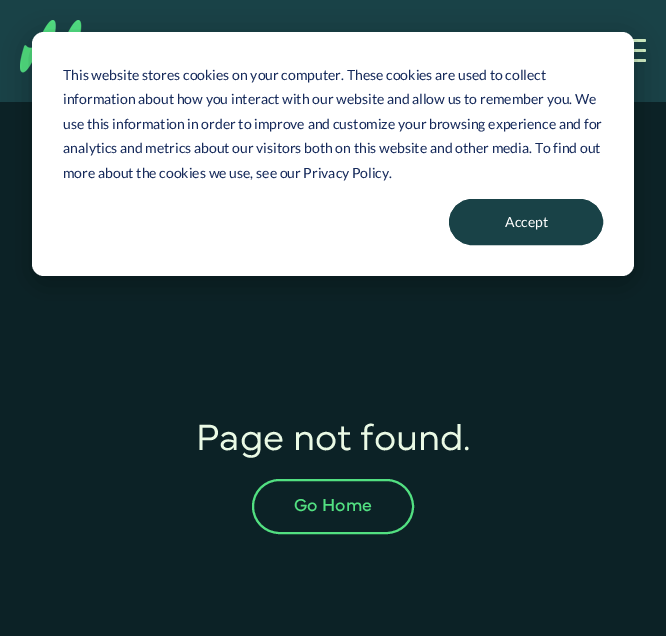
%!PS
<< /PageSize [666 636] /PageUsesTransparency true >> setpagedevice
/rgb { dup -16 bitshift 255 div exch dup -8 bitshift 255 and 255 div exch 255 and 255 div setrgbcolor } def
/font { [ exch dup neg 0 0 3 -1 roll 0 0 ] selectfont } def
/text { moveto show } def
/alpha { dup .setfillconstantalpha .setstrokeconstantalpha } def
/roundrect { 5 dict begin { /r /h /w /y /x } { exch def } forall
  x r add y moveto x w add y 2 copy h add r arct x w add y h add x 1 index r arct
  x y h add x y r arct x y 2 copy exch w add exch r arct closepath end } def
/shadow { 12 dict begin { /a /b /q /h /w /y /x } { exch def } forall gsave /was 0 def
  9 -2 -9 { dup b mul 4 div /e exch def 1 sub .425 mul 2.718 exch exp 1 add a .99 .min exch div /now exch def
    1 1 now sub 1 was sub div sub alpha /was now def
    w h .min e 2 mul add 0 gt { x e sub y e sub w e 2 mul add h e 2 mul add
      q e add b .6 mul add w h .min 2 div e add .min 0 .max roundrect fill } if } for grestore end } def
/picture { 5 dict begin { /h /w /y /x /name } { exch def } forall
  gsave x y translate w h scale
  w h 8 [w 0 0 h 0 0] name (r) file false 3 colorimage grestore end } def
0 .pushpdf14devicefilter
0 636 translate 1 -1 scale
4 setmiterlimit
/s1 { /Lato-Regular 14 font 16#15295A rgb } def
/s2 { /Lato-Regular 14 font 16#FFFFFF rgb } def
/s3 { /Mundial-Light 38 font 16#EAFAE5 rgb } def
/s4 { /Mundial-Regular 18 font 16#52E081 rgb } def
16#0C2226 rgb
0 0 666 636 rectfill
16#194247 rgb
0 0 666 102 rectfill
(pic1.raw) 20 20 62 53 picture
16#D2F0C6 rgb
616 39 30 3 1.5 roundrect fill
616 49 30 3 1.5 roundrect fill
616 59 30 3 1.5 roundrect fill
16#000000 rgb
32 40 602 244 12 14 0.28 shadow
16#FFFFFF rgb
32 32 602 244 12 roundrect fill
s1
(This website stores cookies on your computer. These cookies are used to collect) 63 80 text
(information about how you interact with our website and allow us to remember you. We) 63 104 text
(use this information in order to improve and customize your browsing experience and for) 63 129 text
(analytics and metrics about our visitors both on this website and other media. To find out) 63 153 text
(more about the cookies we use, see our Privacy Policy.) 63 178 text
16#194247 rgb
449.5 199.5 153 45 22.5 roundrect gsave fill grestore
stroke
s2
(Accept) 505 227 text
s3
(Page not found.) 196 450 text
16#52E081 rgb
2 setlinewidth
253 480 160 53 26.5 roundrect stroke
s4
(Go Home) 294 511 text
.poppdf14devicefilter showpage
